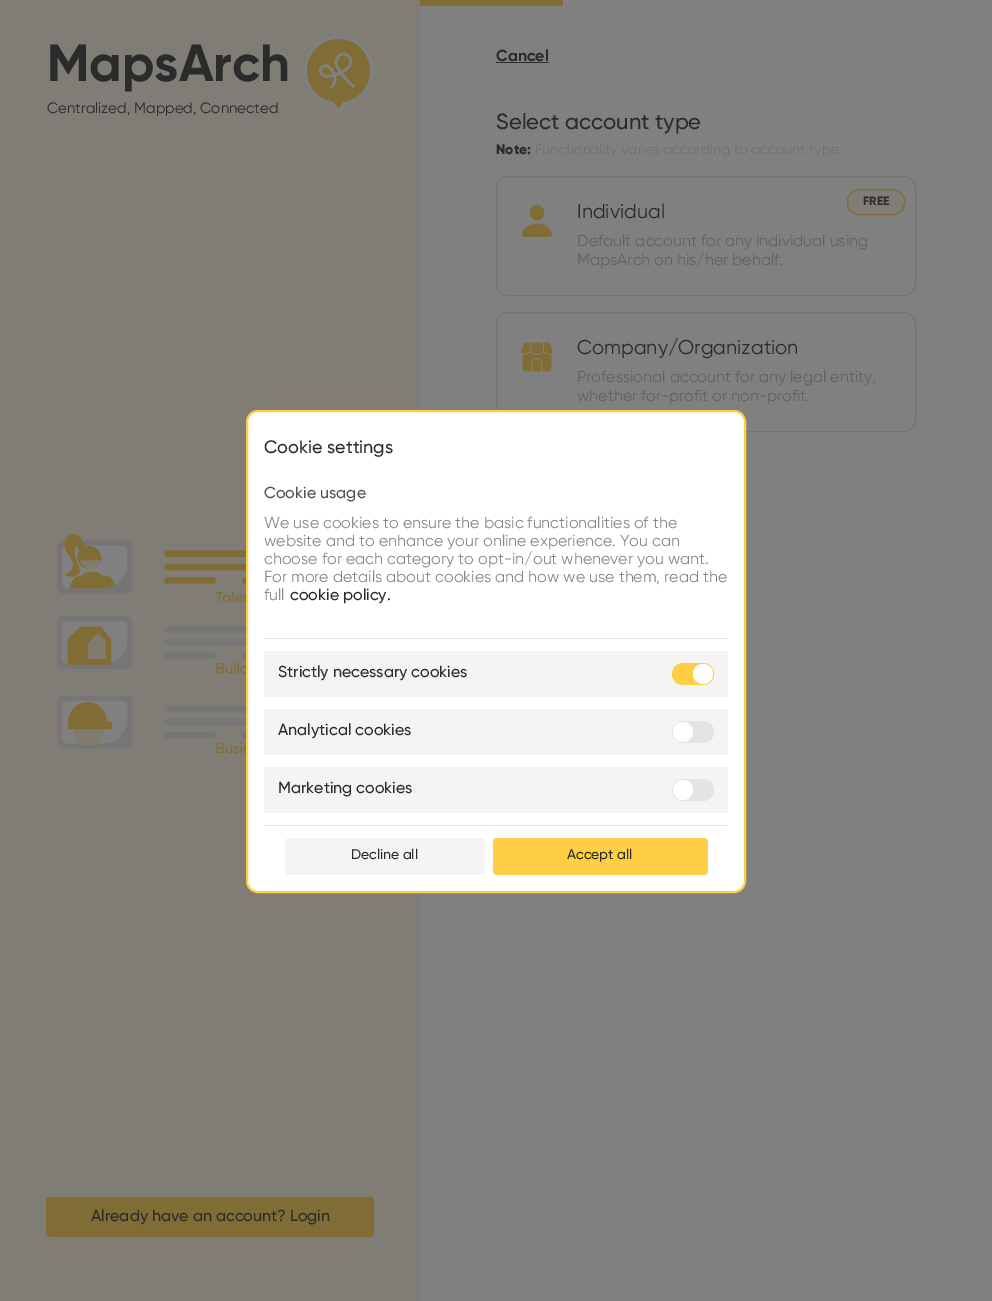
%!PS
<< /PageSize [992 1301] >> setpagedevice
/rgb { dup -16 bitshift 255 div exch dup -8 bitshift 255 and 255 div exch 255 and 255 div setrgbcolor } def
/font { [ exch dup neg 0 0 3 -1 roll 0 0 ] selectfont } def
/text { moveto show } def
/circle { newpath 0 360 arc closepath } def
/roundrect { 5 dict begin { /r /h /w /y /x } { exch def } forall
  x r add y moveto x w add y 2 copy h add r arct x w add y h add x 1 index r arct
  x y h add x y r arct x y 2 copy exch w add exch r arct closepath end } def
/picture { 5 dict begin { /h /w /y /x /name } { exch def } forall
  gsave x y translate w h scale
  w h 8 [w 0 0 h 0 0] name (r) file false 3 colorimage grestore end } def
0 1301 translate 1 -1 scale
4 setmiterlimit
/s1 { /Gilroy-Bold 52 font 16#2B2B2B rgb } def
/s2 { /Gilroy-Regular 15 font 16#2B2B2B rgb } def
/s3 { /Gilroy-Medium 16 font 16#2B2B2B rgb } def
/s4 { /Gilroy-Bold 16 font 16#2B2B2B rgb } def
/s5 { /Gilroy-Medium 22 font 16#2B2B2B rgb } def
/s6 { /Gilroy-ExtraBold 14 font 16#2B2B2B rgb } def
/s7 { /Gilroy-Light 14 font 16#6D6D6D rgb } def
/s8 { /Gilroy-Bold 12 font 16#2B2B2B rgb } def
/s9 { /Gilroy-Regular 20 font 16#2B2B2B rgb } def
/s10 { /Gilroy-Regular 16 font 16#626262 rgb } def
/s11 { /Gilroy-Medium 18 font 16#2B2B2B rgb } def
/s12 { /Gilroy-Medium 16 font 16#535353 rgb } def
/s13 { /Gilroy-Regular 16 font 16#888888 rgb } def
/s14 { /Gilroy-Medium 14 font 16#2B2B2B rgb } def
16#808080 rgb
0 0 992 1301 rectfill
16#807D77 rgb
0 0 420 1301 rectfill
s1
(MapsArch) 47 81 text
s2
(Centralized, Mapped, Connected) 47 113 text
(pic1.raw) 304 36 69 78 picture
(pic2.raw) 57 534 189 220 picture
16#7F6D35 rgb
46 1197 328 40 4 roundrect fill
s3
(Already have an account? Login) 91 1221 text
16#7F6D35 rgb
420 0 143 6 rectfill
s4
(Cancel) 496 61 text
496 62 53 1 rectfill
s5
(Select account type) 496 129 text
s6
(Note:) 496 154 text
s7
(Functionality varies according to account type) 535 154 text
16#747474 rgb
496.5 176.5 419 119 11.5 roundrect stroke
16#807D77 rgb
847.5 189.5 57 25 11.5 roundrect gsave fill grestore
16#7F6D35 rgb
stroke
s8
(FREE) 863 205 text
(pic3.raw) 522 205 30 32 picture
s9
(Individual) 577 218 text
s10
(Default account for any individual using) 577 246 text
(MapsArch on his/her behalf.) 577 265 text
16#747474 rgb
496.5 312.5 419 119 11.5 roundrect stroke
(pic4.raw) 520 342 34 30 picture
s9
(Company/Organization) 577 354 text
s10
(Professional account for any legal entity,) 577 382 text
(whether for-profit or non-profit.) 577 401 text
16#FFFFFF rgb
247 411 498 481 11 roundrect gsave fill grestore
16#FECF45 rgb
2 setlinewidth
stroke
s11
(Cookie settings) 264 453 text
s12
(Cookie usage) 264 498 text
s13
(We use cookies to ensure the basic functionalities of the) 264 528 text
(website and to enhance your online experience. You can) 264 546 text
(choose for each category to opt-in/out whenever you want.) 264 564 text
(For more details about cookies and how we use them, read the) 264 582 text
(full) 264 600 text
s3
(cookie policy.) 290 600 text
16#E4E4E4 rgb
264 638 464 1 rectfill
264 825 464 1 rectfill
16#F4F4F4 rgb
264 651 464 46 rectfill
s3
(Strictly necessary cookies) 278 677 text
16#FECF45 rgb
672 663 42 22 11 roundrect fill
16#FFFFFF rgb
703 674 10 circle fill
16#F4F4F4 rgb
264 709 464 46 rectfill
s3
(Analytical cookies) 278 735 text
16#E4E4E4 rgb
672 721 42 22 11 roundrect fill
16#FFFFFF rgb
683 732 10 circle fill
16#F4F4F4 rgb
264 767 464 46 rectfill
s3
(Marketing cookies) 278 793 text
16#E4E4E4 rgb
672 779 42 22 11 roundrect fill
16#FFFFFF rgb
683 790 10 circle fill
16#F4F4F4 rgb
285 838 200 37 4 roundrect fill
s14
(Decline all) 351 859 text
16#FECF45 rgb
493 838 215 37 4 roundrect fill
s14
(Accept all) 567 859 text
showpage
